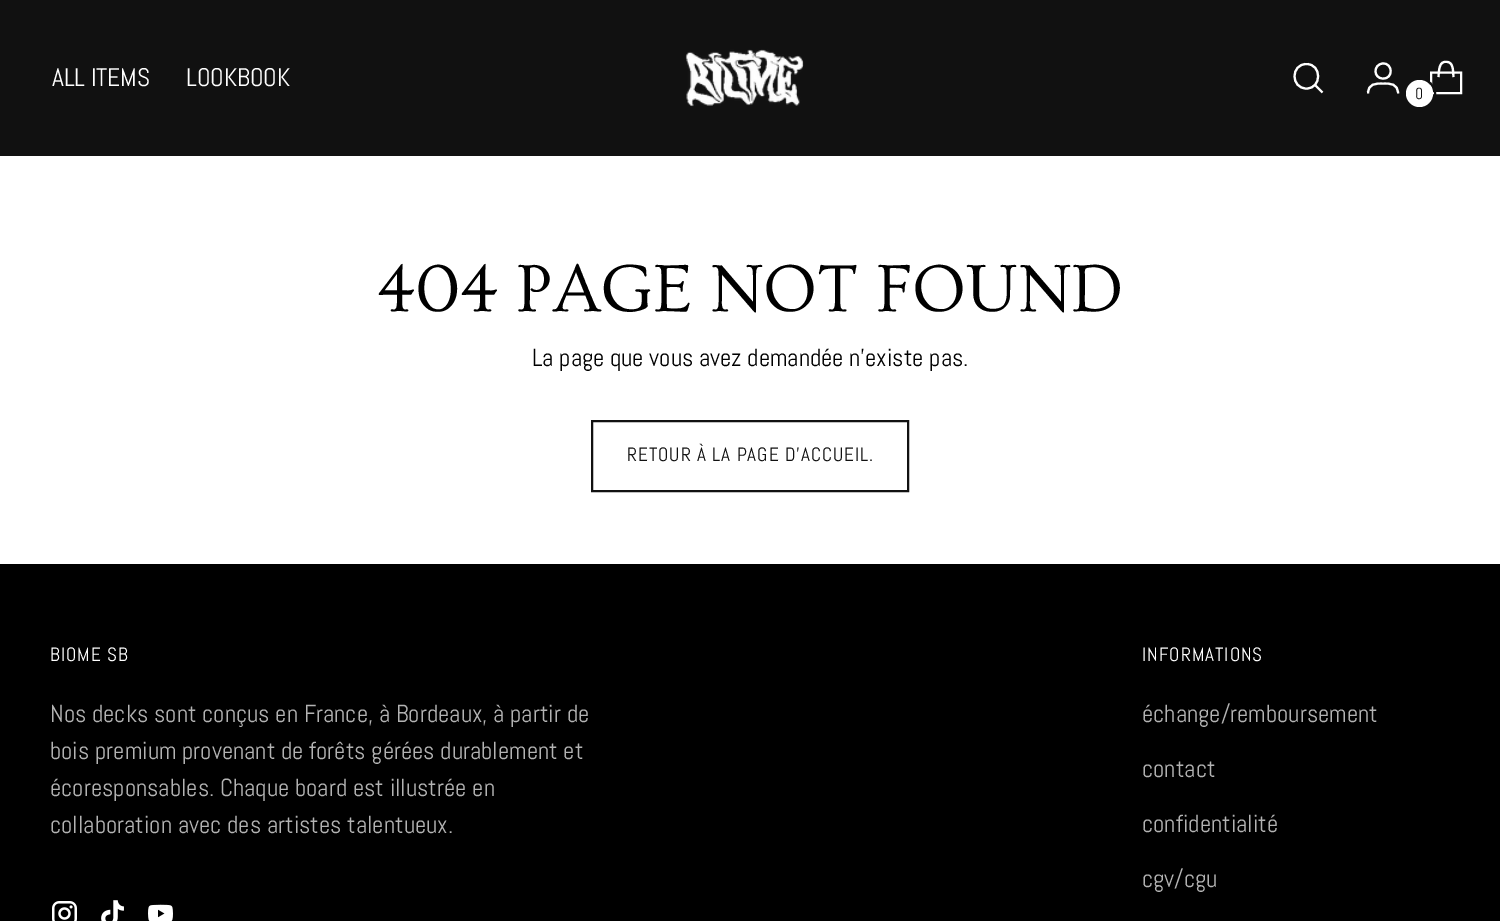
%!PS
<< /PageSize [1500 921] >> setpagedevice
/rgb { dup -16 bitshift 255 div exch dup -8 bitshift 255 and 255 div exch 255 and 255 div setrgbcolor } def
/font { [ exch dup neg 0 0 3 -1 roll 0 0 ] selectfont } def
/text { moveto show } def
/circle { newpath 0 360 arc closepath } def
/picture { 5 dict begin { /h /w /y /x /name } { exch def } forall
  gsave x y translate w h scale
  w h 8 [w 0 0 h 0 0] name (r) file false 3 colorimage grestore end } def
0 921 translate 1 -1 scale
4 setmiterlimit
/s1 { /Abel-Regular 16 font 16#111111 rgb } def
/s2 { /Ovo-Regular 69.75 font 16#000000 rgb } def
/s3 { /Abel-Regular 24.75 font 16#000000 rgb } def
/s4 { /Abel-Regular 24.75 font 16#B3B3B3 rgb } def
16#FFFFFF rgb
0 0 1500 921 rectfill
16#111111 rgb
0 0 1500 156 rectfill
/Abel-Regular 25.5 font
16#FFFFFF rgb
52 86 moveto -0.1 0 (ALL ITEMS) ashow
186 86 moveto -0.1 0 (LOOKBOOK) ashow
(pic1.raw) 685 49 119 58 picture
2.1 setlinewidth
1 setlinecap
1306.5 88.5 moveto 1322 88.5 1322 64 1306.5 64 curveto 1290.5 64 1290.5 88.5 1306.5 88.5 curveto closepath stroke
0 setlinecap
1315 85 moveto 1322.5 92.5 lineto stroke
1383 78.5 moveto 1393.5 79 1393 63 1383 63.5 curveto 1373 64 1373 78.5 1383 78.5 curveto closepath 1368 93.5 moveto 1368 83.5 1375.5 83.5 1383 83.5 curveto 1390.5 83.5 1398 83.5 1398 93.5 curveto stroke
2 setlinejoin
1453.5 77 moveto 1453 73.5 1453.5 69.5 1452 66 curveto 1451.5 64 1449.5 62 1447.5 62 curveto 1438.5 60 1439 71.5 1438.5 77 curveto stroke
0 setlinejoin
1461 93 moveto 1461 72.5 lineto 1431 72.5 lineto 1431 93 lineto closepath stroke
16#111111 rgb
2 setlinewidth
1420 94 15 circle stroke
16#FFFFFF rgb
1419.5 93.5 13.5 circle fill
s1
(0) 1415 99 text
s2
(404 PAGE NOT FOUND) 377 311 text
s3
(La page que vous avez demandée n'existe pas.) 532 366 text
16#111111 rgb
592 421 316 70 rectstroke
/Abel-Regular 19.25 font
627 461 moveto 0.95 0 (RETOUR À LA PAGE D'ACCUEIL.) ashow
16#000000 rgb
0 564 1500 357 rectfill
16#FFFFFF rgb
50 661 moveto 0.95 0 (BIOME SB) ashow
s4
(Nos decks sont conçus en France, à Bordeaux, à partir de) 50 722 text
(bois premium provenant de forêts gérées durablement et) 50 759 text
(écoresponsables. Chaque board est illustrée en) 50 796 text
(collaboration avec des artistes talentueux.) 50 833 text
(pic2.raw) 52 901 25 20 picture
(pic3.raw) 101 900 23 21 picture
(pic4.raw) 148 904 25 17 picture
/Abel-Regular 19.25 font
16#FFFFFF rgb
1142 661 moveto 0.95 0 (INFORMATIONS) ashow
s4
(échange/remboursement) 1142 722 text
(contact) 1142 777 text
(confidentialité) 1142 832 text
(cgv/cgu) 1142 887 text
showpage
